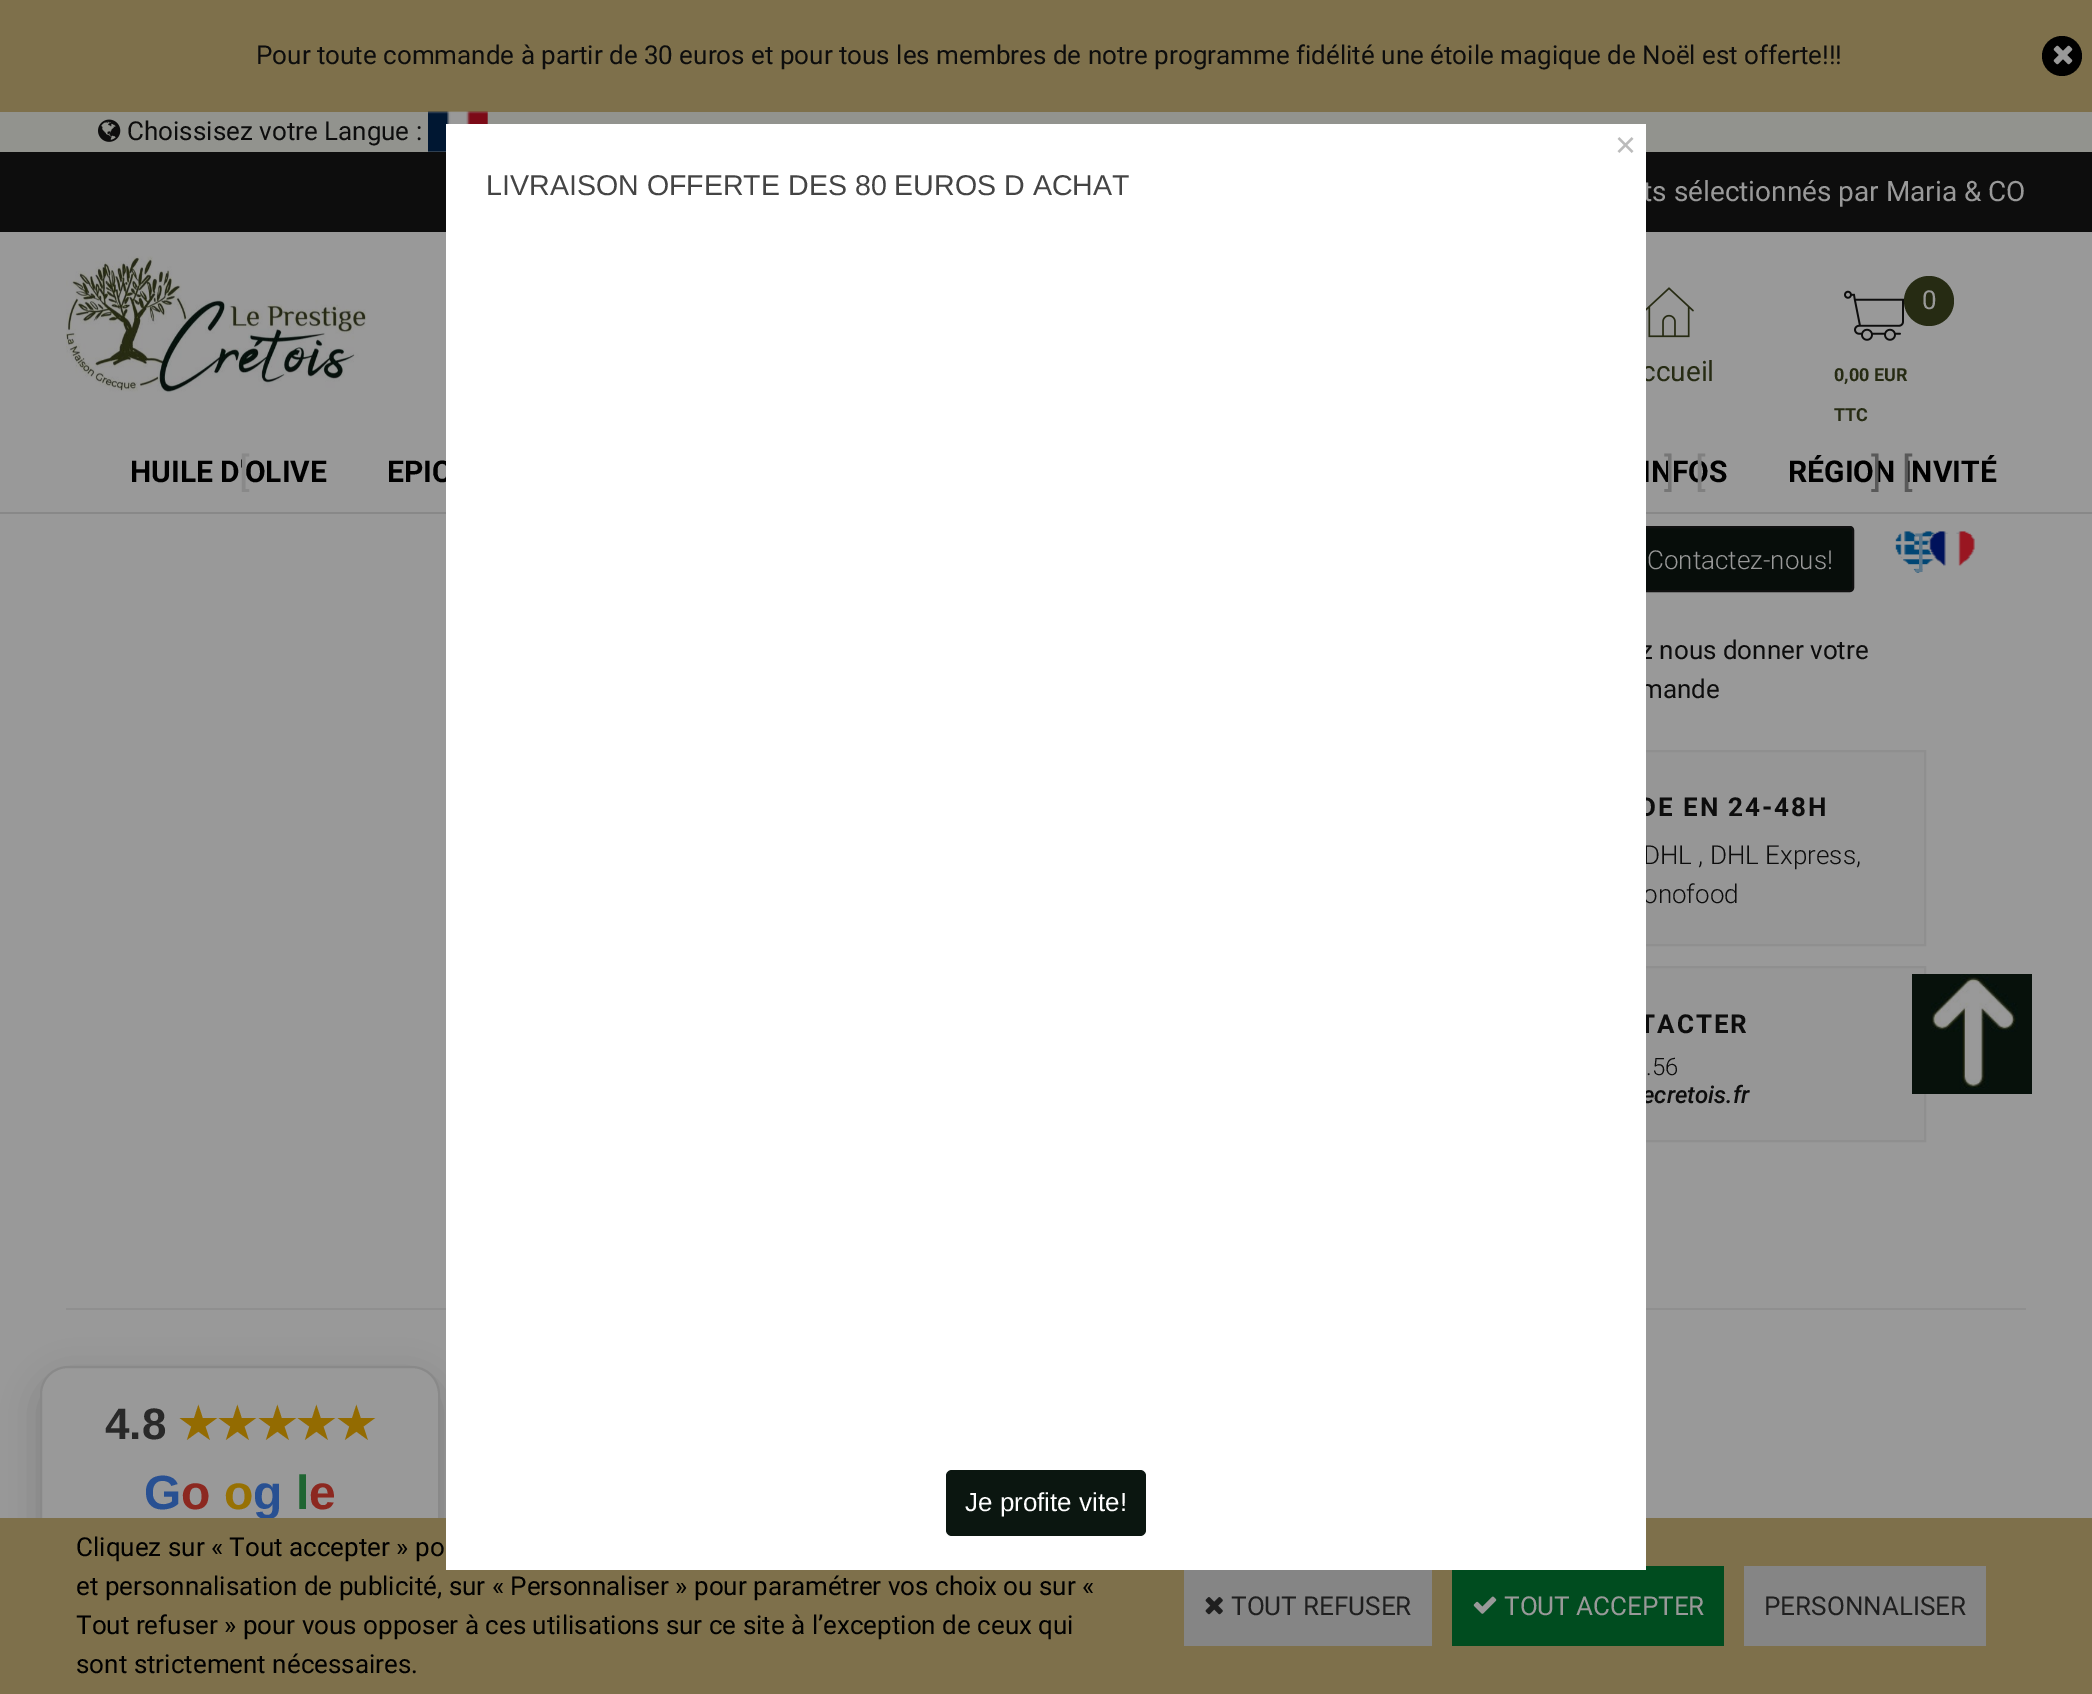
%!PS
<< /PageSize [2092 1694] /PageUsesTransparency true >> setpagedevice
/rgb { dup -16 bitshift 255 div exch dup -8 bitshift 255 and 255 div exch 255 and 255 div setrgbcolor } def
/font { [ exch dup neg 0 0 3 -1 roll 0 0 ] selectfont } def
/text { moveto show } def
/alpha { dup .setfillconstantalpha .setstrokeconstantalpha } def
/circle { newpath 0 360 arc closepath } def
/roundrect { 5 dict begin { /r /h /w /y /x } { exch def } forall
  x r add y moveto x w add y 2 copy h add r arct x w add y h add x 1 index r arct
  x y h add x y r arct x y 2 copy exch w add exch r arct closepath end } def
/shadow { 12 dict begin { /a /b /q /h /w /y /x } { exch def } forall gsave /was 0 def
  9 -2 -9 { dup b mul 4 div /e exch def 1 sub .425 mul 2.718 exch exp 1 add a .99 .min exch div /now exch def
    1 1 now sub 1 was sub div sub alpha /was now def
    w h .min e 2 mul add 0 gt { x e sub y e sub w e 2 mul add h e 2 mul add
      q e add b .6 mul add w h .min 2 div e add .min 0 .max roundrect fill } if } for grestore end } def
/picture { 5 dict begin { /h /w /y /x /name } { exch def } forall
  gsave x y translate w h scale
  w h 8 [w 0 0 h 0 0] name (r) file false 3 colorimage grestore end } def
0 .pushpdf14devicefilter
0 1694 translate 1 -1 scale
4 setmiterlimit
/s1 { /Roboto-Regular 26 font 16#0D0D0D rgb } def
/s2 { /Roboto-Regular 28 font 16#999999 rgb } def
/s3 { /Roboto-Regular 28 font 16#262B13 rgb } def
/s4 { /Roboto-Bold 30 font 16#000000 rgb } def
/s5 { /Roboto-Light 26 font 16#0D0D0D rgb } def
/s6 { /Roboto-MediumItalic 24 font 16#0D0D0D rgb } def
/s7 { /LiberationSans-Bold 48 font 16#285092 rgb } def
/s8 { /LiberationSans-Regular 36 font 16#BBBBBB rgb } def
/s9 { /LiberationSans-Regular 28.6 font 16#444444 rgb } def
/s10 { /LiberationSans-Regular 26 font 16#FFFFFF rgb } def
/s11 { /Roboto-Regular 26 font 16#999999 rgb } def
/s12 { /Roboto-Bold 18 font 16#262B13 rgb } def
/s13 { /Roboto-Regular 40 font 16#898989 rgb } def
/s14 { /Roboto-Regular 40 font 16#767676 rgb } def
/s15 { /Roboto-Regular 40 font 16#808080 rgb } def
/s16 { /Roboto-Regular 40 font 16#595959 rgb } def
/s17 { /Roboto-Regular 40 font 16#5B778A rgb } def
/s18 { /Roboto-Light 26 font 16#999999 rgb } def
/s19 { /Roboto-Light 24 font 16#0D0D0D rgb } def
/s20 { /Roboto-Regular 26 font 16#000000 rgb } def
/s21 { /Roboto-Regular 26 font 16#1F1F1F rgb } def
/s22 { /LiberationSans-Bold 44 font 16#292929 rgb } def
/s23 { /DejaVuSans-Bold 44 font 16#936B01 rgb } def
/s24 { /LiberationSans-Bold 48 font 16#8C2820 rgb } def
/s25 { /LiberationSans-Bold 48 font 16#977103 rgb } def
/s26 { /LiberationSans-Bold 48 font 16#1F6532 rgb } def
16#999999 rgb
0 0 2092 1694 rectfill
16#7E704B rgb
0 0 2092 112 rectfill
s1
(Pour toute commande à partir de 30 euros et pour tous les membres de notre programme fidélité une étoile magique de Noël est offerte!!!) 256 64 text
16#000000 rgb
2062 56 20 circle fill
(pic1.raw) 2053 45 20 20 picture
16#92938E rgb
0 112 2092 40 rectfill
(pic2.raw) 98 119 23 23 picture
s1
(Choissisez votre Langue :) 127 140 text
(pic3.raw) 428 111 60 41 picture
0 152 2092 80 rectfill
16#888888 rgb
0 512 2092 2 rectfill
s2
(ts sélectionnés par Maria & CO) 1643 201 text
s3
(ccueil) 1641 381 text
s4
(EPIC) 387 482 text
(INFOS) 1642 482 text
16#8F8F8F rgb
66 1308 1960 2 rectfill
16#070D0A rgb
1275 527 578 64 3 roundrect gsave fill grestore
16#101010 rgb
2 setlinewidth
stroke
s1
(z nous donner votre) 1640 659 text
(mande) 1640 698 text
16#969696 rgb
1646 752 278 192 rectfill
16#8F8F8F rgb
1275 751 650 194 rectstroke
/Roboto-Bold 26 font
16#0D0D0D rgb
1639 816 moveto 2 0 (DE EN 24-48H) ashow
s5
(DHL , DHL Express,) 1643 864 text
(onofood) 1643 903 text
16#969696 rgb
1646 968 278 172 rectfill
16#8F8F8F rgb
1275 967 650 174 rectstroke
/Roboto-Bold 26 font
16#0D0D0D rgb
1639 1033 moveto 2 0 (TACTER) ashow
s6
(ecretois.fr) 1642 1103 text
16#000000 rgb
40 1378 400 288 28 18 0.15 shadow
16#999999 rgb
41 1367 398 286 27 roundrect gsave fill grestore
16#898989 rgb
stroke
s7
(g) 253 1509 text
16#7E704B rgb
0 1518 2092 176 rectfill
16#004C1F rgb
1452 1566 272 80 rectfill
16#FFFFFF rgb
446 124 1200 1446 rectfill
s8
(×) 1615 157 text
s9
(LIVRAISON OFFERTE DES 80 EUROS D ACHAT) 486 195 text
16#0B1610 rgb
946 1470 200 66 6 roundrect fill
s10
(Je profite vite!) 965 1511 text
(pic4.raw) 66 256 300 137 picture
(pic5.raw) 1646 287 48 51 picture
(pic6.raw) 1844 290 60 51 picture
16#262B13 rgb
1929 301 25 circle fill
s11
(0) 1922 309 text
s12
(0,00 EUR) 1834 381 text
(TTC) 1834 421 text
s4
(HUILE D'OLIVE) 130 482 text
s13
([) 239 486 text
s14
(]) 1664 486 text
s15
([) 1695 486 text
s4
(RÉGION INVITÉ) 1788 482 text
s16
(]) 1871 486 text
([) 1902 486 text
(pic7.raw) 1895 531 80 42 picture
s17
(]) 1915 566 text
s18
(Contactez-nous!) 1647 569 text
s19
(.56) 1646 1075 text
(pic8.raw) 1912 974 120 120 picture
s20
(Cliquez sur « Tout accepter » po) 76 1556 text
(et personnalisation de publicité, sur « Personnaliser » pour paramétrer vos choix ou sur «) 76 1595 text
(Tout refuser » pour vous opposer à ces utilisations sur ce site à l’exception de ceux qui) 76 1634 text
(sont strictement nécessaires.) 76 1673 text
16#858585 rgb
1184 1570 248 76 rectfill
(pic9.raw) 1205 1597 18 18 picture
s21
(TOUT REFUSER) 1231 1615 text
(pic10.raw) 1473 1596 24 18 picture
s11
(TOUT ACCEPTER) 1504 1615 text
16#858585 rgb
1744 1566 242 80 rectfill
s21
(PERSONNALISER) 1764 1615 text
s22
(4.8) 105 1439 text
s23
(★★★★★) 178 1439 text
s7
(G) 144 1509 text
s24
(o) 181 1509 text
s25
(o) 224 1509 text
s26
(l) 296 1509 text
s24
(e) 309 1509 text
.poppdf14devicefilter showpage
